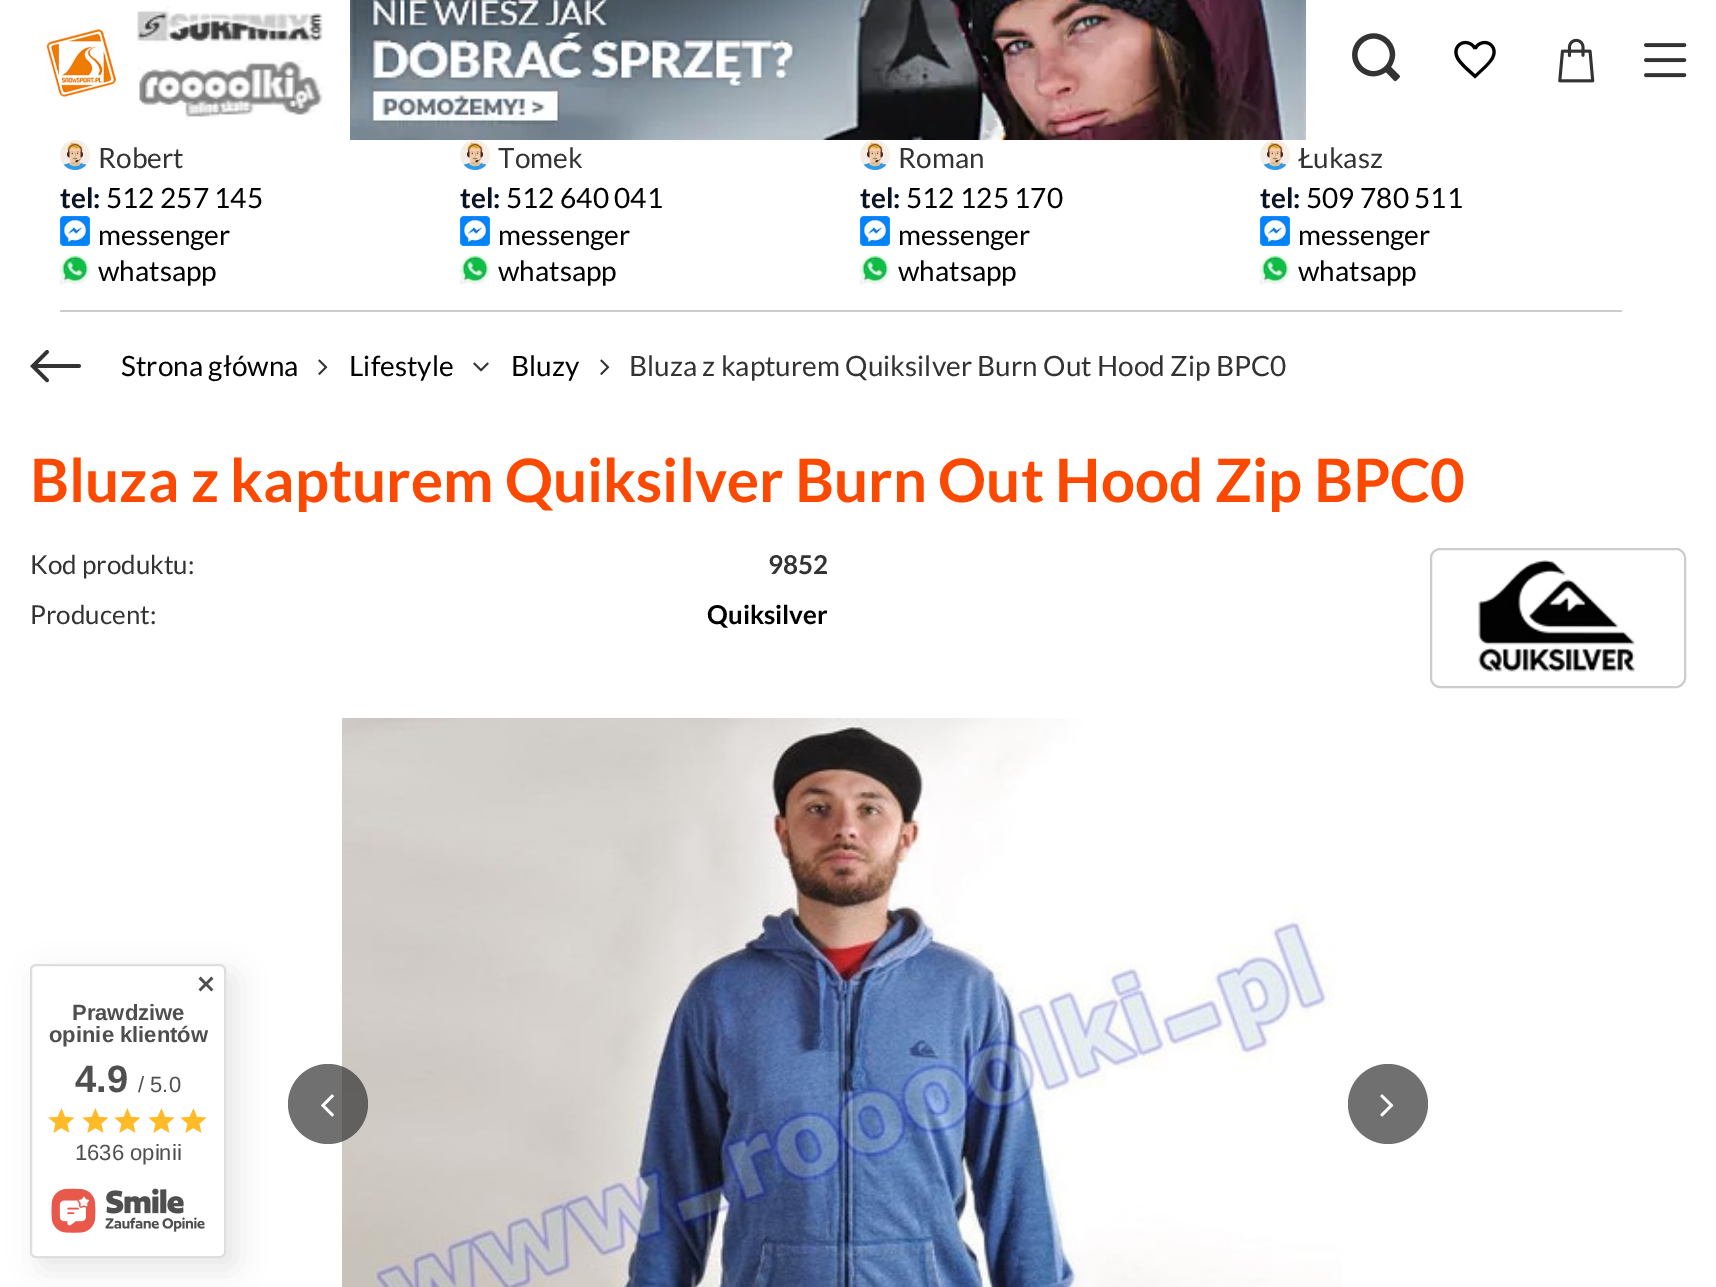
%!PS
<< /PageSize [1716 1287] /PageUsesTransparency true >> setpagedevice
/rgb { dup -16 bitshift 255 div exch dup -8 bitshift 255 and 255 div exch 255 and 255 div setrgbcolor } def
/font { [ exch dup neg 0 0 3 -1 roll 0 0 ] selectfont } def
/text { moveto show } def
/alpha { dup .setfillconstantalpha .setstrokeconstantalpha } def
/circle { newpath 0 360 arc closepath } def
/roundrect { 5 dict begin { /r /h /w /y /x } { exch def } forall
  x r add y moveto x w add y 2 copy h add r arct x w add y h add x 1 index r arct
  x y h add x y r arct x y 2 copy exch w add exch r arct closepath end } def
/shadow { 12 dict begin { /a /b /q /h /w /y /x } { exch def } forall gsave /was 0 def
  9 -2 -9 { dup b mul 4 div /e exch def 1 sub .425 mul 2.718 exch exp 1 add a .99 .min exch div /now exch def
    1 1 now sub 1 was sub div sub alpha /was now def
    w h .min e 2 mul add 0 gt { x e sub y e sub w e 2 mul add h e 2 mul add
      q e add b .6 mul add w h .min 2 div e add .min 0 .max roundrect fill } if } for grestore end } def
/picture { 5 dict begin { /h /w /y /x /name } { exch def } forall
  gsave x y translate w h scale
  w h 8 [w 0 0 h 0 0] name (r) file false 3 colorimage grestore end } def
0 .pushpdf14devicefilter
0 1287 translate 1 -1 scale
4 setmiterlimit
/s1 { /Lato-Regular 28 font 16#333333 rgb } def
/s2 { /Lato-Bold 28 font 16#071222 rgb } def
/s3 { /Lato-Regular 28 font 16#000000 rgb } def
/s4 { /Lato-Bold 60 font 16#FC4901 rgb } def
/s5 { /Lato-Regular 26 font 16#333333 rgb } def
/s6 { /Lato-Bold 26 font 16#333333 rgb } def
/s7 { /Lato-Bold 26 font 16#000000 rgb } def
/s8 { /LiberationSans-Bold 22 font 16#4F4F4F rgb } def
/s9 { /LiberationSans-Bold 38 font 16#4F4F4F rgb } def
/s10 { /LiberationSans-Regular 22 font 16#4F4F4F rgb } def
16#FFFFFF rgb
0 0 1716 1287 rectfill
(pic1.raw) 46 29 70 68 picture
(pic2.raw) 137 6 187 39 picture
(pic3.raw) 138 60 186 60 picture
(pic4.raw) 350 0 956 140 picture
(pic5.raw) 1352 33 48 49 picture
(pic6.raw) 1454 40 42 39 picture
(pic7.raw) 1558 38 37 45 picture
(pic8.raw) 1644 43 43 35 picture
16#CCCCCC rgb
60 310 1562 2 rectfill
(pic9.raw) 60 140 30 30 picture
s1
(Robert) 98 168 text
s2
(tel:) 60 208 text
s3
(512 257 145) 106 208 text
(pic10.raw) 60 216 30 30 picture
(messenger) 98 245 text
(pic11.raw) 60 254 30 30 picture
(whatsapp) 98 281 text
(pic12.raw) 460 140 30 30 picture
s1
(Tomek) 498 168 text
s2
(tel:) 460 208 text
s3
(512 640 041) 506 208 text
(pic13.raw) 460 216 30 30 picture
(messenger) 498 245 text
(pic14.raw) 460 254 30 30 picture
(whatsapp) 498 281 text
(pic9.raw) 860 140 30 30 picture
s1
(Roman) 898 168 text
s2
(tel:) 860 208 text
s3
(512 125 170) 906 208 text
(pic10.raw) 860 216 30 30 picture
(messenger) 898 245 text
(pic11.raw) 860 254 30 30 picture
(whatsapp) 898 281 text
(pic15.raw) 1260 140 30 30 picture
s1
(Łukasz) 1298 168 text
s2
(tel:) 1260 208 text
s3
(509 780 511) 1306 208 text
(pic16.raw) 1260 216 30 30 picture
(messenger) 1298 245 text
(pic17.raw) 1260 254 30 30 picture
(whatsapp) 1298 281 text
(pic18.raw) 30 350 51 33 picture
(Strona główna) 121 376 text
(pic19.raw) 318 359 10 16 picture
(Lifestyle) 349 376 text
(pic20.raw) 473 362 16 10 picture
(Bluzy) 511 376 text
(pic19.raw) 600 359 10 16 picture
s1
(Bluza z kapturem Quiksilver Burn Out Hood Zip BPC0) 629 376 text
s4
(Bluza z kapturem Quiksilver Burn Out Hood Zip BPC0) 30 502 text
s5
(Kod produktu:) 30 574 text
s6
(9852) 768 574 text
s5
(Producent:) 30 624 text
s7
(Quiksilver) 707 624 text
16#CCCCCC rgb
2 setlinewidth
1431 549 254 138 9 roundrect stroke
(pic21.raw) 1478 560 157 112 picture
(pic22.raw) 342 718 1000 569 picture
0.7 alpha
16#333333 rgb
328 1104 40 circle fill
1 alpha
(pic23.raw) 321 1094 13 23 picture
16#707070 rgb
1388 1104 40 circle fill
(pic24.raw) 1380 1094 14 23 picture
16#000000 rgb
40 974 196 294 6 15 0.1 shadow
16#FFFFFF rgb
31 965 194 292 5 roundrect gsave fill grestore
16#DEDEDE rgb
stroke
(pic25.raw) 198 976 16 16 picture
s8
(Prawdziwe) 72 1020 text
(opinie klientów) 49 1042 text
s9
(4.9) 75 1092 text
s10
(/ 5.0) 138 1092 text
(pic26.raw) 48 1108 27 25 picture
(pic27.raw) 82 1108 26 25 picture
(pic26.raw) 114 1108 27 25 picture
(pic27.raw) 148 1108 26 25 picture
(pic26.raw) 180 1108 27 25 picture
(1636 opinii) 75 1160 text
(pic28.raw) 51 1188 154 45 picture
.poppdf14devicefilter showpage
